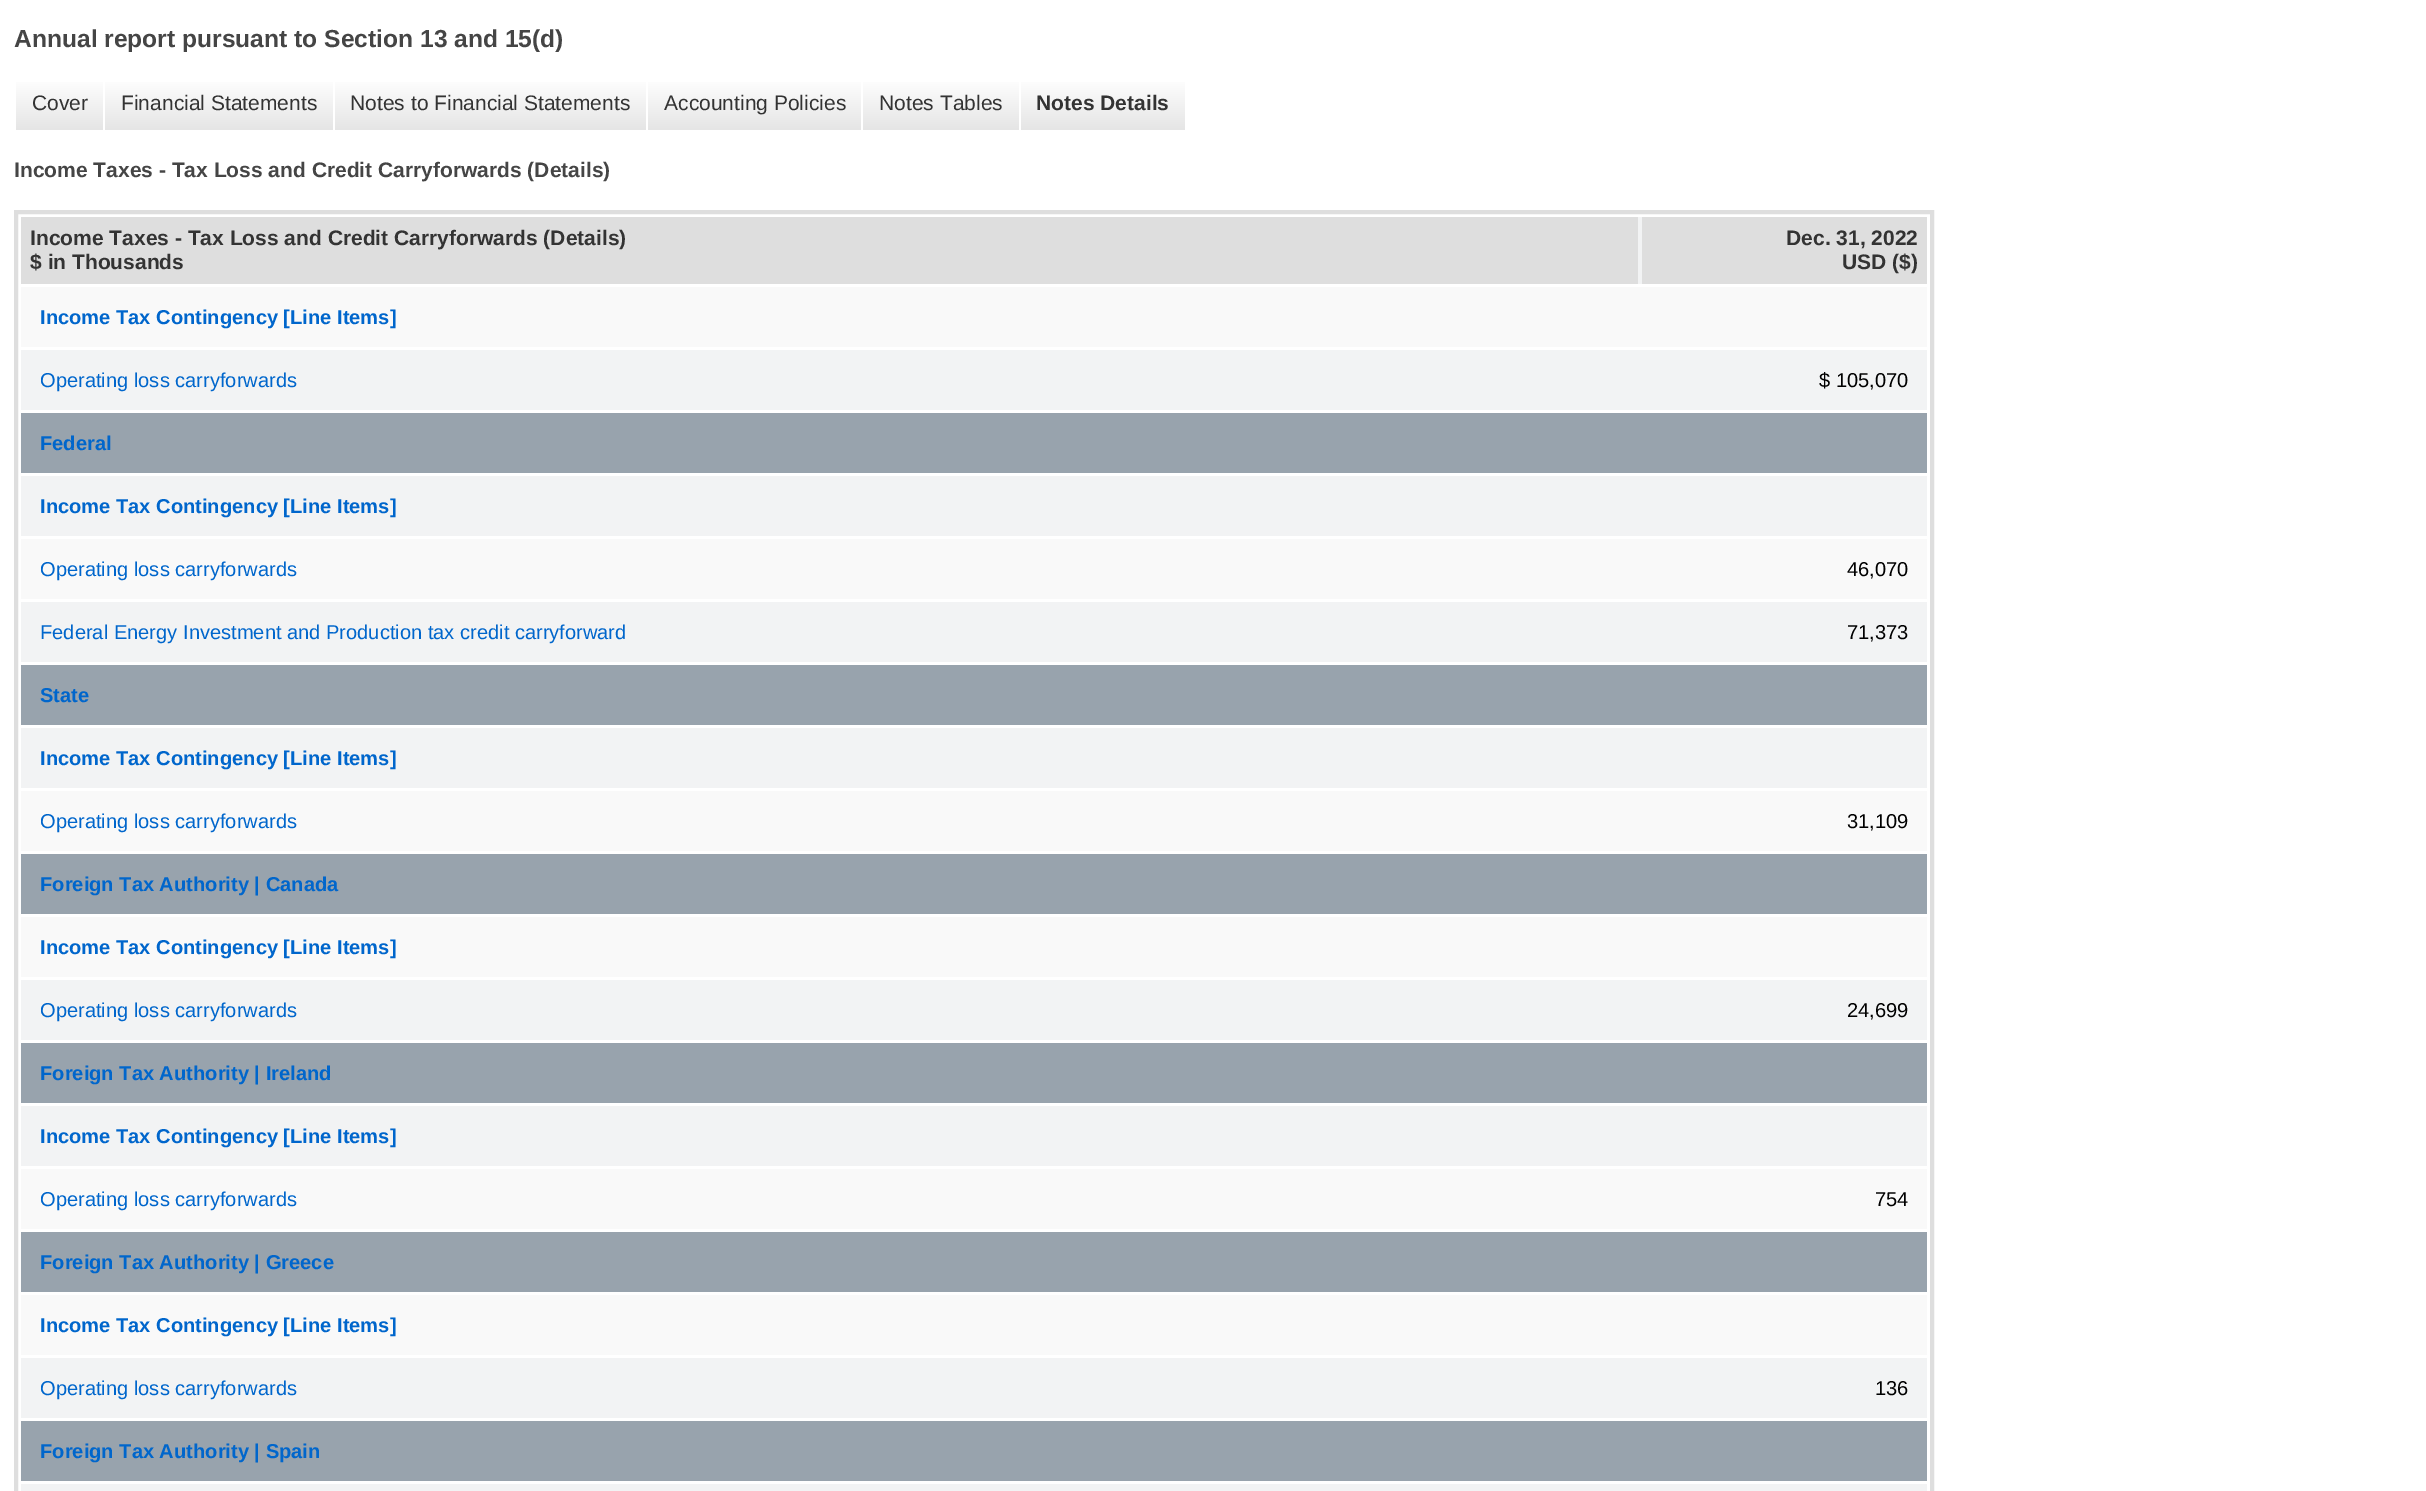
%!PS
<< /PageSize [2426 1491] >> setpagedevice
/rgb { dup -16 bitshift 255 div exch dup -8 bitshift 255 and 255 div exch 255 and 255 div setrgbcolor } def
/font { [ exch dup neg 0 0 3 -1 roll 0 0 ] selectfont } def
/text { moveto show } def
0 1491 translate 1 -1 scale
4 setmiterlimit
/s1 { /LiberationSans-Bold 24.6 font 16#454545 rgb } def
/s2 { /LiberationSans-Regular 21 font 16#333333 rgb } def
/s3 { /LiberationSans-Bold 21 font 16#333333 rgb } def
/s4 { /LiberationSans-Bold 21 font 16#454545 rgb } def
/s5 { /LiberationSans-Bold 20.1 font 16#0066CC rgb } def
/s6 { /LiberationSans-Regular 20.1 font 16#0066CC rgb } def
/s7 { /LiberationSans-Regular 20.1 font 16#000000 rgb } def
16#FFFFFF rgb
0 0 2426 1491 rectfill
s1
(Annual report pursuant to Section 13 and 15\(d\)) 14 47 text
gsave 16 82 moveto 103 82 lineto 103 130 lineto 16 130 lineto closepath clip newpath
<< /ShadingType 2 /ColorSpace /DeviceRGB /Coords [60 77 60 130] /Extend [true true] /Function << /FunctionType 2 /Domain [0 1] /C0 [1 1 1] /C1 [0.898 0.898 0.898] /N 1 >> >> shfill grestore
s2
(Cover) 32 110 text
gsave 105 82 moveto 333 82 lineto 333 130 lineto 105 130 lineto closepath clip newpath
<< /ShadingType 2 /ColorSpace /DeviceRGB /Coords [219 77 219 130] /Extend [true true] /Function << /FunctionType 2 /Domain [0 1] /C0 [1 1 1] /C1 [0.898 0.898 0.898] /N 1 >> >> shfill grestore
(Financial Statements) 121 110 text
gsave 335 82 moveto 646 82 lineto 646 130 lineto 335 130 lineto closepath clip newpath
<< /ShadingType 2 /ColorSpace /DeviceRGB /Coords [490 77 490 130] /Extend [true true] /Function << /FunctionType 2 /Domain [0 1] /C0 [1 1 1] /C1 [0.898 0.898 0.898] /N 1 >> >> shfill grestore
(Notes to Financial Statements) 350 110 text
gsave 648 82 moveto 861 82 lineto 861 130 lineto 648 130 lineto closepath clip newpath
<< /ShadingType 2 /ColorSpace /DeviceRGB /Coords [754 77 754 130] /Extend [true true] /Function << /FunctionType 2 /Domain [0 1] /C0 [1 1 1] /C1 [0.898 0.898 0.898] /N 1 >> >> shfill grestore
(Accounting Policies) 664 110 text
gsave 863 82 moveto 1019 82 lineto 1019 130 lineto 863 130 lineto closepath clip newpath
<< /ShadingType 2 /ColorSpace /DeviceRGB /Coords [941 77 941 130] /Extend [true true] /Function << /FunctionType 2 /Domain [0 1] /C0 [1 1 1] /C1 [0.898 0.898 0.898] /N 1 >> >> shfill grestore
(Notes Tables) 879 110 text
gsave 1021 82 moveto 1185 82 lineto 1185 130 lineto 1021 130 lineto closepath clip newpath
<< /ShadingType 2 /ColorSpace /DeviceRGB /Coords [1103 77 1103 130] /Extend [true true] /Function << /FunctionType 2 /Domain [0 1] /C0 [1 1 1] /C1 [0.898 0.898 0.898] /N 1 >> >> shfill grestore
s3
(Notes Details) 1036 110 text
s4
(Income Taxes - Tax Loss and Credit Carryforwards \(Details\)) 14 177 text
16#DEDEDE rgb
4 setlinewidth
16 212 1916 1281 rectstroke
16#F2F3F4 rgb
1638 217 4 67 rectfill
16#DEDEDE rgb
21 217 1617 67 rectfill
s3
(Income Taxes - Tax Loss and Credit Carryforwards \(Details\)) 30 245 text
($ in Thousands) 30 269 text
16#DEDEDE rgb
1642 217 285 67 rectfill
s3
(Dec. 31, 2022) 1786 245 text
(USD \($\)) 1842 269 text
16#F9F9F9 rgb
21 287 1906 60 rectfill
s5
(Income Tax Contingency [Line Items]) 40 324 text
16#F2F3F4 rgb
21 350 1906 60 rectfill
s6
(Operating loss carryforwards) 40 387 text
s7
($ 105,070) 1819 387 text
16#98A3AD rgb
21 413 1906 60 rectfill
s5
(Federal) 40 450 text
16#F2F3F4 rgb
21 476 1906 60 rectfill
s5
(Income Tax Contingency [Line Items]) 40 513 text
16#F9F9F9 rgb
21 539 1906 60 rectfill
s6
(Operating loss carryforwards) 40 576 text
s7
(46,070) 1847 576 text
16#F2F3F4 rgb
21 602 1906 60 rectfill
s6
(Federal Energy Investment and Production tax credit carryforward) 40 639 text
s7
(71,373) 1847 639 text
16#98A3AD rgb
21 665 1906 60 rectfill
s5
(State) 40 702 text
16#F2F3F4 rgb
21 728 1906 60 rectfill
s5
(Income Tax Contingency [Line Items]) 40 765 text
16#F9F9F9 rgb
21 791 1906 60 rectfill
s6
(Operating loss carryforwards) 40 828 text
s7
(31,109) 1847 828 text
16#98A3AD rgb
21 854 1906 60 rectfill
s5
(Foreign Tax Authority | Canada) 40 891 text
16#F9F9F9 rgb
21 917 1906 60 rectfill
s5
(Income Tax Contingency [Line Items]) 40 954 text
16#F2F3F4 rgb
21 980 1906 60 rectfill
s6
(Operating loss carryforwards) 40 1017 text
s7
(24,699) 1847 1017 text
16#98A3AD rgb
21 1043 1906 60 rectfill
s5
(Foreign Tax Authority | Ireland) 40 1080 text
16#F2F3F4 rgb
21 1106 1906 60 rectfill
s5
(Income Tax Contingency [Line Items]) 40 1143 text
16#F9F9F9 rgb
21 1169 1906 60 rectfill
s6
(Operating loss carryforwards) 40 1206 text
s7
(754) 1875 1206 text
16#98A3AD rgb
21 1232 1906 60 rectfill
s5
(Foreign Tax Authority | Greece) 40 1269 text
16#F9F9F9 rgb
21 1295 1906 60 rectfill
s5
(Income Tax Contingency [Line Items]) 40 1332 text
16#F2F3F4 rgb
21 1358 1906 60 rectfill
s6
(Operating loss carryforwards) 40 1395 text
s7
(136) 1875 1395 text
16#98A3AD rgb
21 1421 1906 60 rectfill
s5
(Foreign Tax Authority | Spain) 40 1458 text
16#F2F3F4 rgb
21 1484 1906 7 rectfill
showpage
